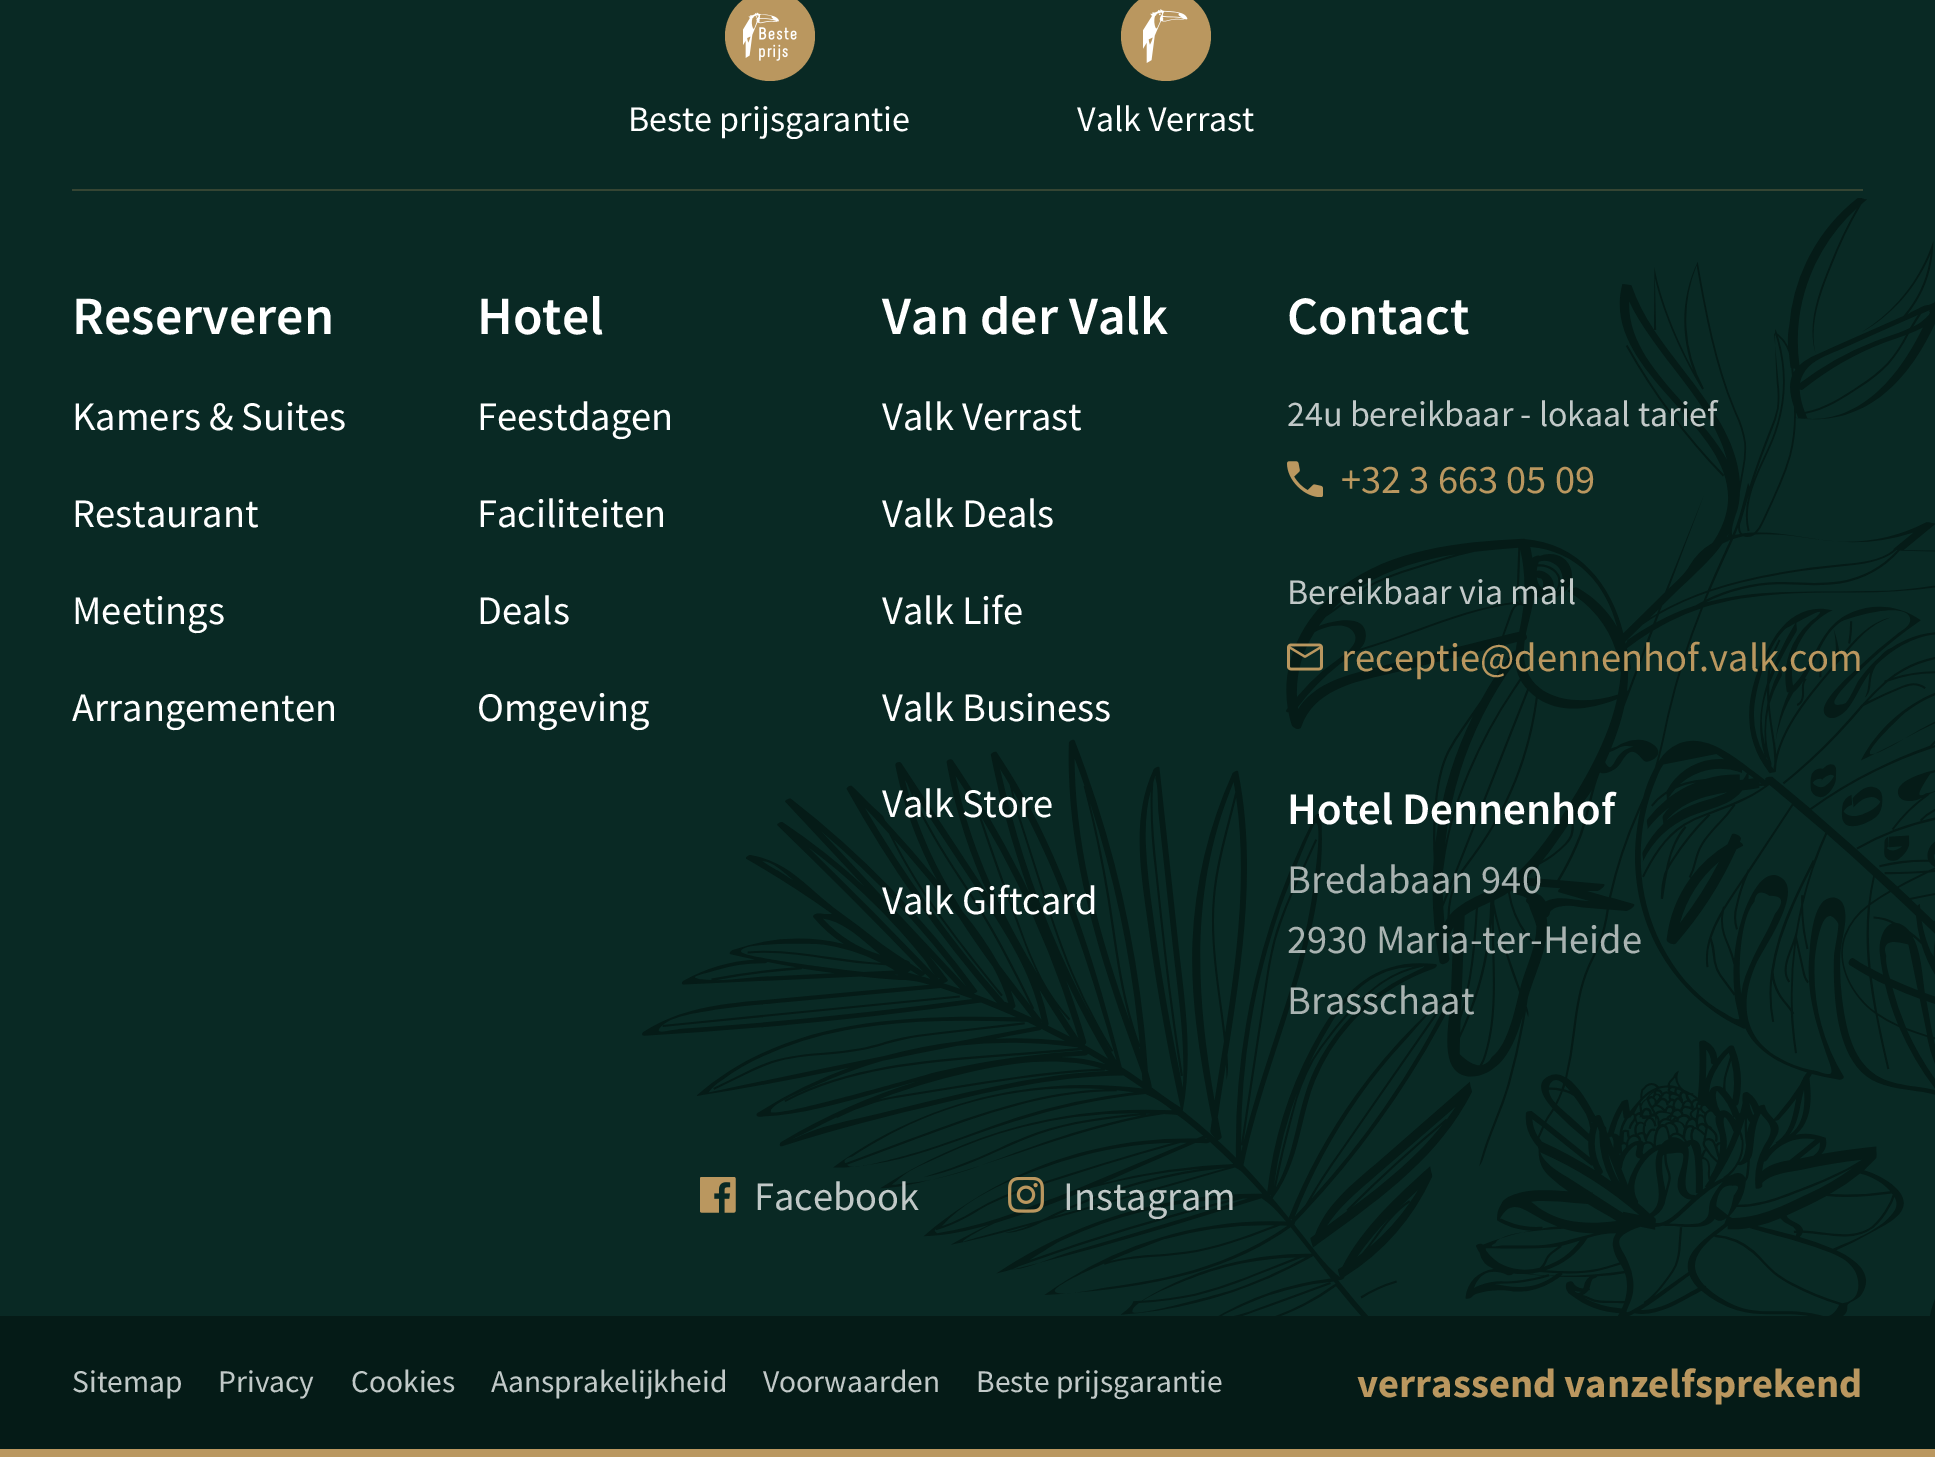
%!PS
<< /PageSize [1935 1457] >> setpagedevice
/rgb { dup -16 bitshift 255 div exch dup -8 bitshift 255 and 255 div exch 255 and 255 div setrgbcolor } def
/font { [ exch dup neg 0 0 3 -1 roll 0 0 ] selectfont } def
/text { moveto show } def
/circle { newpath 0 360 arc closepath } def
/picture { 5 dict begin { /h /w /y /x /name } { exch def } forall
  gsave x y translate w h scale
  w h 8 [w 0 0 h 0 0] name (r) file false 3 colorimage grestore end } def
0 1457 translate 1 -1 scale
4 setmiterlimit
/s1 { /SourceSansPro-Regular 36 font 16#FFFFFF rgb } def
/s2 { /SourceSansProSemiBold-SemiBold 54 font 16#FFFFFF rgb } def
/s3 { /SourceSansPro-Regular 40.5 font 16#FFFFFF rgb } def
/s4 { /SourceSansPro-Regular 36 font 16#C1C9C8 rgb } def
/s5 { /SourceSansPro-Regular 40.5 font 16#BA975F rgb } def
/s6 { /SourceSansProSemiBold-SemiBold 45 font 16#FFFFFF rgb } def
/s7 { /SourceSansPro-Regular 40.5 font 16#A9B3B1 rgb } def
/s8 { /SourceSansPro-Regular 40.5 font 16#C1C9C8 rgb } def
/s9 { /SourceSansPro-Regular 31.5 font 16#C1C9C8 rgb } def
/s10 { /SourceSansPro-Bold 40.5 font 16#BA975F rgb } def
16#092924 rgb
0 0 1935 1457 rectfill
(pic1.raw) 642 198 1293 1118 picture
16#BA975F rgb
770 36 45 circle fill
(pic2.raw) 743 12 54 49 picture
s1
(Beste prijsgarantie) 628 131 text
16#BA975F rgb
1166 36 45 circle fill
(pic3.raw) 1143 9 45 54 picture
s1
(Valk Verrast) 1077 131 text
16#354533 rgb
72 189 1791 2 rectfill
s2
(Reserveren) 72 334 text
s3
(Kamers & Suites) 72 430 text
(Restaurant) 72 527 text
(Meetings) 72 624 text
(Arrangementen) 72 721 text
s2
(Hotel) 477 334 text
s3
(Feestdagen) 477 430 text
(Faciliteiten) 477 527 text
(Deals) 477 624 text
(Omgeving) 477 721 text
s2
(Van der Valk) 882 334 text
s3
(Valk Verrast) 882 430 text
(Valk Deals) 882 527 text
(Valk Life) 882 624 text
(Valk Business) 882 721 text
(Valk Store) 882 817 text
(Valk Giftcard) 882 914 text
s2
(Contact) 1287 334 text
s4
(24u bereikbaar - lokaal tarief) 1287 426 text
(pic4.raw) 1287 461 36 36 picture
s5
(+32 3 663 05 09) 1341 493 text
s4
(Bereikbaar via mail) 1287 604 text
(pic5.raw) 1287 643 36 28 picture
s5
(receptie@dennenhof.valk.com) 1341 671 text
s6
(Hotel Dennenhof) 1287 824 text
s7
(Bredabaan 940) 1287 893 text
(2930 Maria-ter-Heide) 1287 953 text
(Brasschaat) 1287 1014 text
(pic6.raw) 700 1177 36 36 picture
s8
(Facebook) 754 1210 text
(pic7.raw) 1008 1177 36 36 picture
(Instagram) 1063 1210 text
16#051B17 rgb
0 1316 1935 133 rectfill
16#BA975F rgb
0 1449 1935 8 rectfill
s9
(Sitemap) 72 1392 text
(Privacy) 218 1392 text
(Cookies) 351 1392 text
(Aansprakelijkheid) 491 1392 text
(Voorwaarden) 763 1392 text
(Beste prijsgarantie) 976 1392 text
s10
(verrassend vanzelfsprekend) 1357 1397 text
showpage
